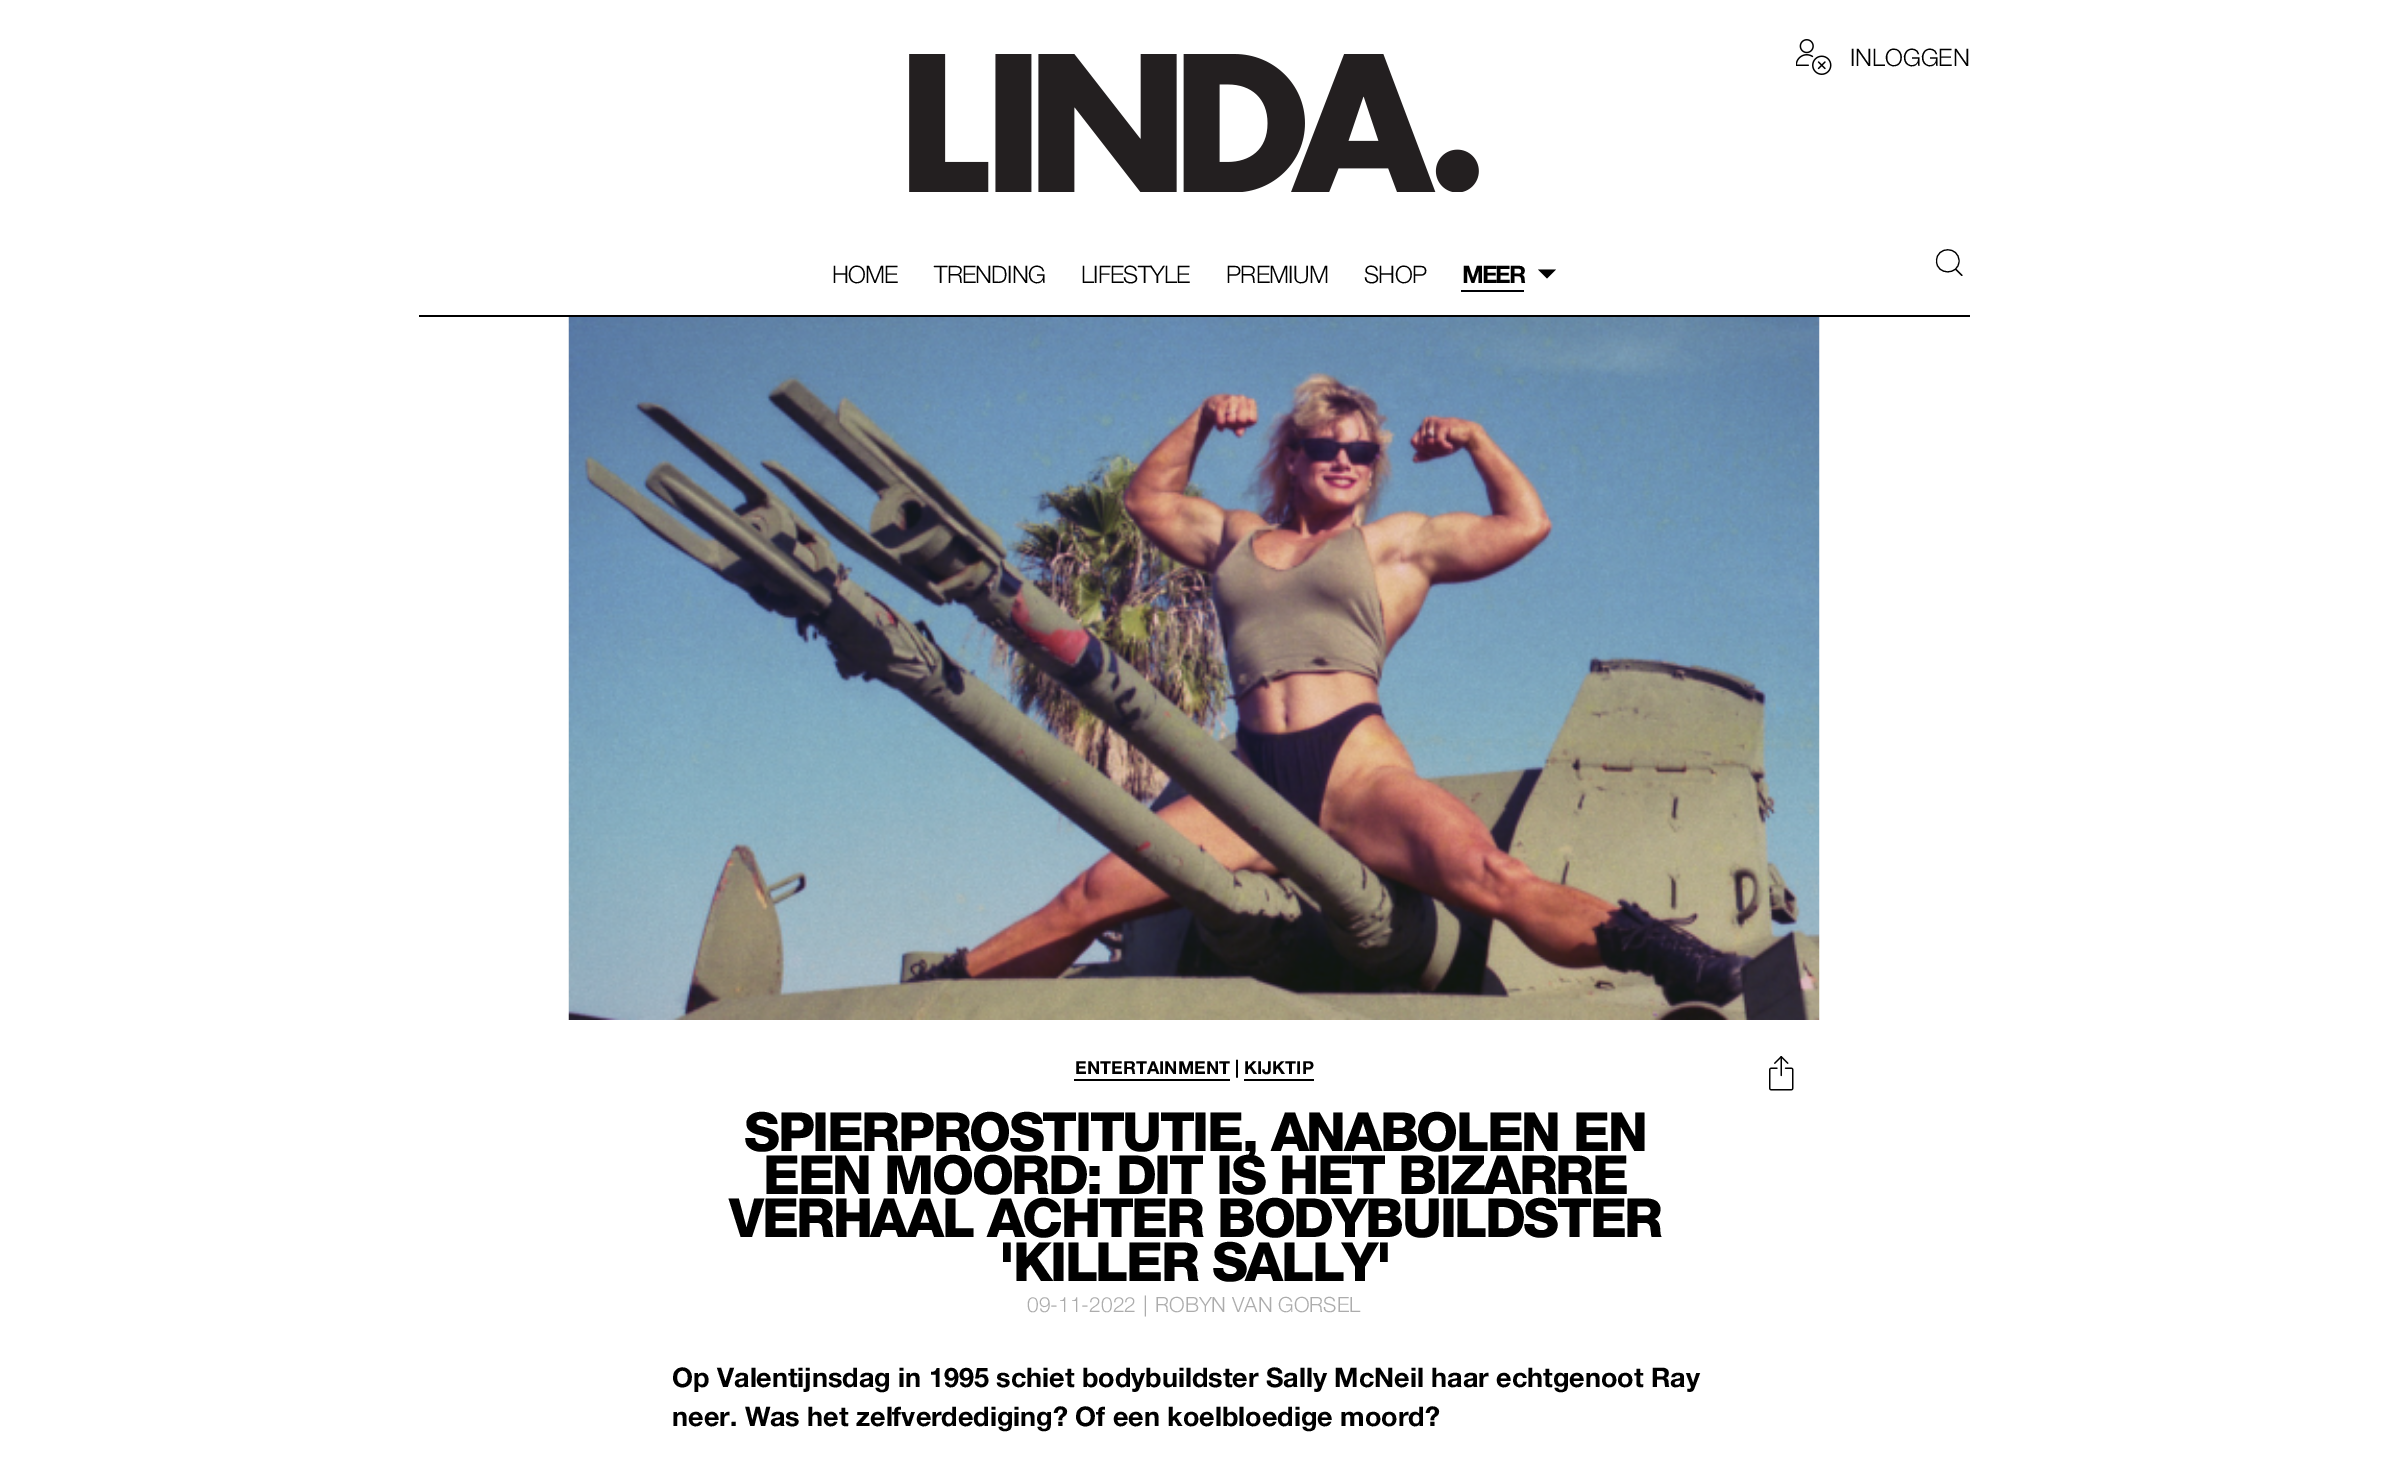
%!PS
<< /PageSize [2387 1479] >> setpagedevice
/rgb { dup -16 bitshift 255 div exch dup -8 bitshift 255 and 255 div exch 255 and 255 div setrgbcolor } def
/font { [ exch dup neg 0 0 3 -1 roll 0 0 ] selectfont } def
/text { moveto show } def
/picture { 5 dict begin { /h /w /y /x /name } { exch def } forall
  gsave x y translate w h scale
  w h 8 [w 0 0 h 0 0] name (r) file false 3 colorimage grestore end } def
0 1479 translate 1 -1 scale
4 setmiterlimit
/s1 { /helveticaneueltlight-Light 24 font 16#000000 rgb } def
/s2 { /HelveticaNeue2-Bold 18 font 16#000000 rgb } def
/s3 { /helveticaneueltlight-Light 21 font 16#ACACAC rgb } def
/s4 { /HelveticaNeue2-Bold 27 font 16#000000 rgb } def
16#FFFFFF rgb
0 0 2387 1479 rectfill
16#000000 rgb
419 315 1551 2 rectfill
(pic1.raw) 909 54 570 138 picture
(pic2.raw) 1796 39 36 36 picture
s1
(INLOGGEN) 1850 66 text
832 283 moveto -0.75 0 (HOME) ashow
934 283 moveto -0.75 0 (TRENDING) ashow
1081 283 moveto -0.75 0 (LIFESTYLE) ashow
1226 283 moveto -0.75 0 (PREMIUM) ashow
1364 283 moveto -0.75 0 (SHOP) ashow
/HelveticaNeue2-Bold 24 font
1462 283 moveto -2 0 (MEER) ashow
16#000105 rgb
1461 290 63 2 rectfill
16#000000 rgb
1538 269.5 moveto 1556 269.5 lineto 1547 278.5 lineto closepath fill
1.1 setlinewidth
1 setlinecap
1 setlinejoin
1936.5 261 moveto 1936.5 275.5 1959 275.5 1959 261 curveto 1959 246 1936.5 246 1936.5 261 curveto closepath 1962 275.5 moveto 1955.5 269 lineto stroke
(pic3.raw) 568 317 1252 703 picture
s2
(ENTERTAINMENT | KIJKTIP) 1075 1074 text
1074 1079 156 2 rectfill
1244 1079 70 2 rectfill
/HelveticaNeue-Bold 54 font
744 1151 moveto -2.4 0 (SPIERPROSTITUTIE, ANABOLEN EN) ashow
763 1194 moveto -2.4 0 (EEN MOORD: DIT IS HET BIZARRE) ashow
729 1237 moveto -2.4 0 (VERHAAL ACHTER BODYBUILDSTER) ashow
999 1281 moveto -2.4 0 ('KILLER SALLY') ashow
(pic4.raw) 1769 1056 25 35 picture
s3
(09-11-2022) 1027 1312 text
(|) 1143 1312 text
(ROBYN VAN GORSEL) 1155 1312 text
s4
(Op Valentijnsdag in 1995 schiet bodybuildster Sally McNeil haar echtgenoot Ray) 672 1387 text
(neer. Was het zelfverdediging? Of een koelbloedige moord?) 672 1426 text
showpage
